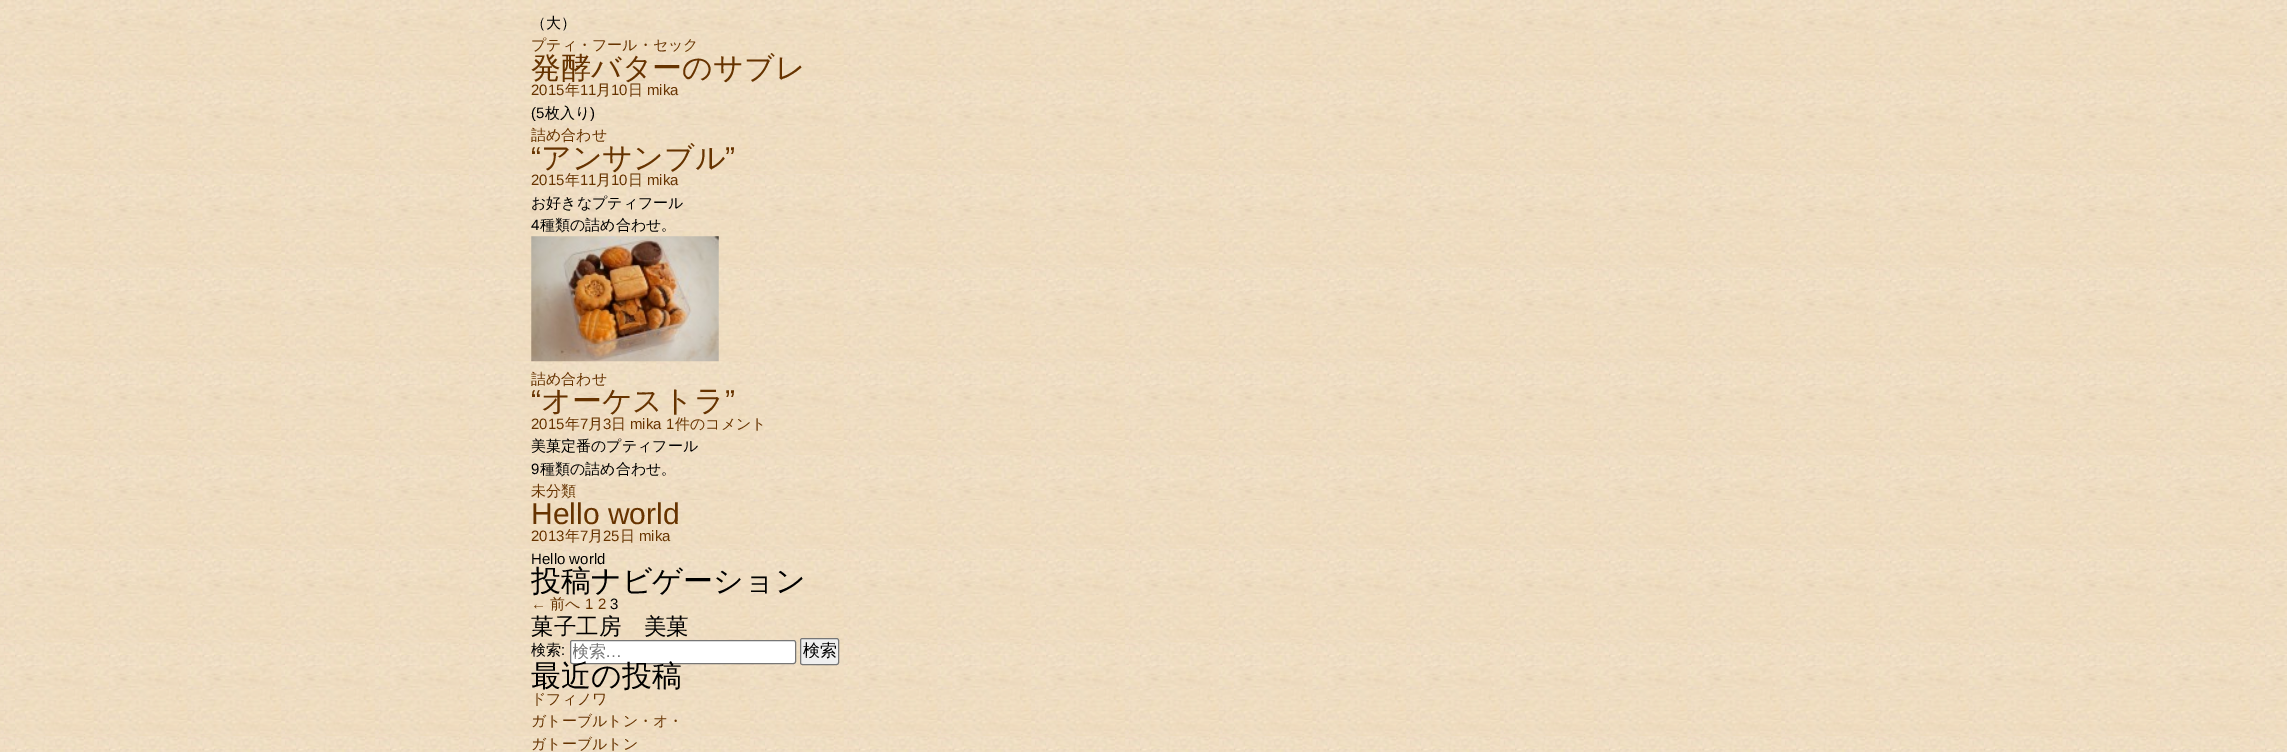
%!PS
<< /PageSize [2287 752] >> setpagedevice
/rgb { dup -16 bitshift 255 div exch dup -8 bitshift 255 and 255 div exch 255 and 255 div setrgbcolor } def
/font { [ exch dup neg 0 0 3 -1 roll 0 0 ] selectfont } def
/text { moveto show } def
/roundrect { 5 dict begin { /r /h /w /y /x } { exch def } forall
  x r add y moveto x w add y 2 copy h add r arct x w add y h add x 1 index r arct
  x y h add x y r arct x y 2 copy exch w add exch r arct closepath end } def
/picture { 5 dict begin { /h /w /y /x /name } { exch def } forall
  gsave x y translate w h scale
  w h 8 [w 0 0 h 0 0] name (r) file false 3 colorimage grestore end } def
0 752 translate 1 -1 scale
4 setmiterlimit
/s1 { /WenQuanYiZenHei-Medium 15 font 16#000000 rgb } def
/s2 { /WenQuanYiZenHei-Medium 15 font 16#663300 rgb } def
/s3 { /WenQuanYiZenHei-Medium 30 font 16#663300 rgb } def
/s4 { /LiberationSans-Regular 15 font 16#663300 rgb } def
/s5 { /LiberationSans-Regular 15 font 16#000000 rgb } def
/s6 { /LiberationSans-Regular 30 font 16#663300 rgb } def
/s7 { /WenQuanYiZenHei-Medium 30 font 16#000000 rgb } def
/s8 { /WenQuanYiZenHei-Medium 22.5 font 16#000000 rgb } def
/s9 { /WenQuanYiZenHei-Medium 17 font 16#757575 rgb } def
/s10 { /LiberationSans-Regular 17 font 16#757575 rgb } def
/s11 { /WenQuanYiZenHei-Medium 17 font 16#000000 rgb } def
16#FFFFFF rgb
0 0 2287 752 rectfill
(pic1.raw) 0 0 2287 752 picture
s1
(（大）) 531 28 text
s2
(プティ・フール・セック) 531 50 text
s3
(発酵バターのサブレ) 531 78 text
s4
(2015) 531 95 text
s2
(年) 565 95 text
s4
(11) 580 95 text
s2
(月) 596 95 text
s4
(10) 611 95 text
s2
(日) 628 95 text
s4
(mika) 647 95 text
s5
(\(5) 531 118 text
s1
(枚入り) 545 118 text
s5
(\)) 590 118 text
s2
(詰め合わせ) 531 140 text
s6
(“) 531 168 text
s3
(アンサンブル) 541 168 text
s6
(”) 725 168 text
s4
(2015) 531 185 text
s2
(年) 565 185 text
s4
(11) 580 185 text
s2
(月) 596 185 text
s4
(10) 611 185 text
s2
(日) 628 185 text
s4
(mika) 647 185 text
s1
(お好きなプティフール) 531 208 text
s5
(4) 531 230 text
s1
(種類の詰め合わせ。) 540 230 text
(pic2.raw) 531 236 188 126 picture
s2
(詰め合わせ) 531 384 text
s6
(“) 531 411 text
s3
(オーケストラ) 541 411 text
s6
(”) 725 411 text
s4
(2015) 531 429 text
s2
(年) 565 429 text
s4
(7) 580 429 text
s2
(月) 588 429 text
s4
(3) 603 429 text
s2
(日) 611 429 text
s4
(mika 1) 630 429 text
s2
(件のコメント) 675 429 text
s1
(美菓定番のプティフール) 531 451 text
s5
(9) 531 474 text
s1
(種類の詰め合わせ。) 540 474 text
s2
(未分類) 531 496 text
s6
(Hello world) 531 524 text
s4
(2013) 531 541 text
s2
(年) 565 541 text
s4
(7) 580 541 text
s2
(月) 588 541 text
s4
(25) 603 541 text
s2
(日) 620 541 text
s4
(mika) 639 541 text
s5
(Hello world) 531 564 text
s7
(投稿ナビゲーション) 531 591 text
s4
(←) 531 609 text
s2
(前へ) 550 609 text
s4
(1 2) 585 609 text
s5
(3) 610 609 text
s8
(菓子工房　美菓) 531 634 text
s1
(検索) 531 655 text
s5
(:) 561 655 text
16#FFFFFF rgb
570.5 640.5 225 23 2 roundrect gsave fill grestore
16#767676 rgb
stroke
gsave
573 643 205 18 rectclip
s9
(検索) 572 657 text
grestore
s10
(…) 605 657 text
16#EFEFEF rgb
800.5 638.5 38 26 2 roundrect gsave fill grestore
16#767676 rgb
stroke
s11
(検索) 803 656 text
s7
(最近の投稿) 531 686 text
s2
(ドフィノワ) 531 704 text
(ガトーブルトン・オ・) 531 726 text
(ガトーブルトン) 531 749 text
showpage
